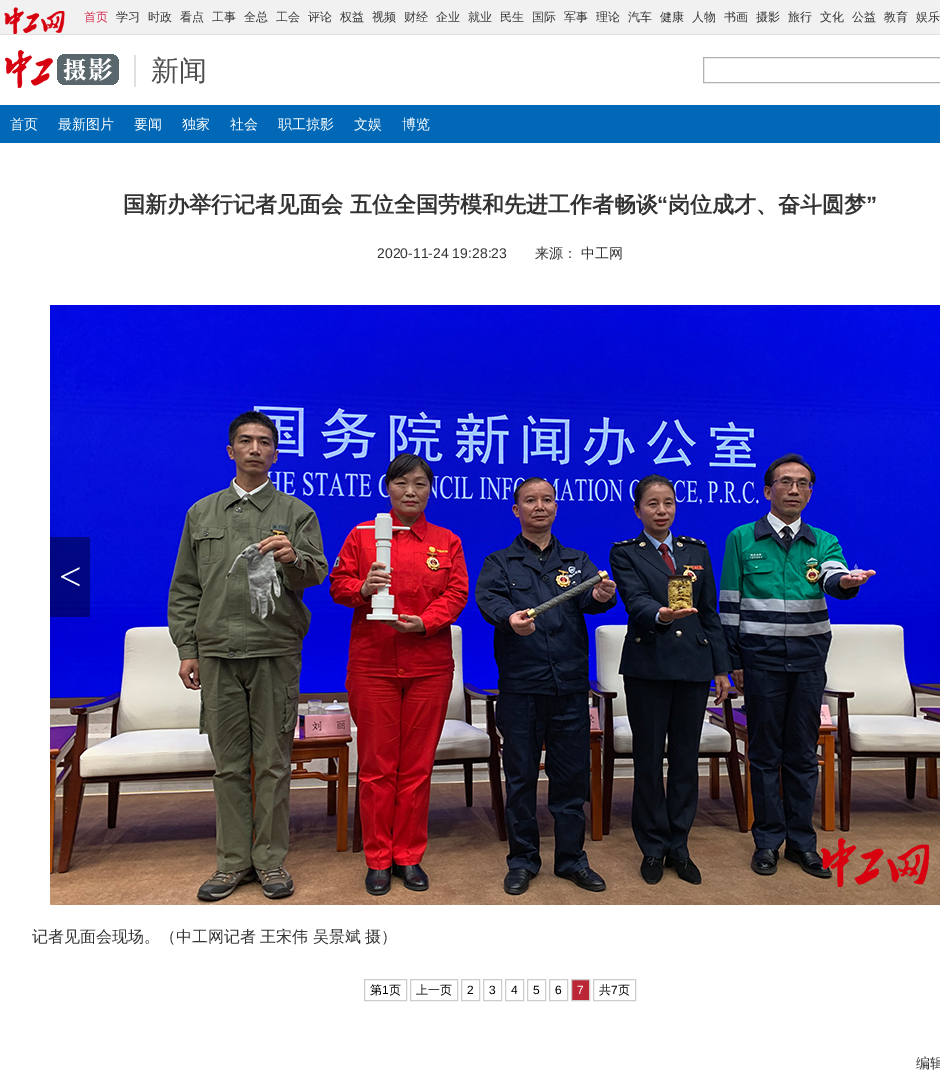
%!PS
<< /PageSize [940 1075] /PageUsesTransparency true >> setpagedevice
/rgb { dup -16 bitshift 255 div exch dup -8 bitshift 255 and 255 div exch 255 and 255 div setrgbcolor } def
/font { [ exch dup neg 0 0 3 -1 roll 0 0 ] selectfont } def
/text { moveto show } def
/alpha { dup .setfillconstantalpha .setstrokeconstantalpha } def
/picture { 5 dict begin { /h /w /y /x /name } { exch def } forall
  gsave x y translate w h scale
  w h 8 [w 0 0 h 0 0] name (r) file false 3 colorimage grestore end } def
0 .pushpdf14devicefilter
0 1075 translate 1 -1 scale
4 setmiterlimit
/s1 { /WenQuanYiZenHei-Medium 12 font 16#D52B4D rgb } def
/s2 { /WenQuanYiZenHei-Medium 12 font 16#333333 rgb } def
/s3 { /WenQuanYiZenHei-Medium 28 font 16#4E4E4E rgb } def
/s4 { /WenQuanYiZenHei-Medium 14 font 16#FFFFFF rgb } def
/s5 { /WenQuanYiZenHei-Bold 22 font 16#333333 rgb } def
/s6 { /LiberationSans-Bold 22 font 16#333333 rgb } def
/s7 { /LiberationSans-Regular 14 font 16#333333 rgb } def
/s8 { /WenQuanYiZenHei-Medium 14 font 16#333333 rgb } def
/s9 { /LiberationSerif-Regular 40 font 16#FFFFFF rgb } def
/s10 { /WenQuanYiZenHei-Medium 12 font 16#000000 rgb } def
/s11 { /LiberationSans-Regular 12 font 16#000000 rgb } def
/s12 { /LiberationSans-Regular 12 font 16#FFFFFF rgb } def
16#FFFFFF rgb
0 0 940 1075 rectfill
16#F1F1F1 rgb
0 0 940 34 rectfill
16#E0E0E0 rgb
0 34 940 1 rectfill
(pic1.raw) 4 7 61 27 picture
s1
(首页) 84 21 text
s2
(学习) 116 21 text
(时政) 148 21 text
(看点) 180 21 text
(工事) 212 21 text
(全总) 244 21 text
(工会) 276 21 text
(评论) 308 21 text
(权益) 340 21 text
(视频) 372 21 text
(财经) 404 21 text
(企业) 436 21 text
(就业) 468 21 text
(民生) 500 21 text
(国际) 532 21 text
(军事) 564 21 text
(理论) 596 21 text
(汽车) 628 21 text
(健康) 660 21 text
(人物) 692 21 text
(书画) 724 21 text
(摄影) 756 21 text
(旅行) 788 21 text
(文化) 820 21 text
(公益) 852 21 text
(教育) 884 21 text
(娱乐) 916 21 text
(pic2.raw) 5 50 114 38 picture
16#E0E0E0 rgb
134 55 2 32 rectfill
s3
(新闻) 151 80 text
16#B2B2B2 rgb
703.5 57.5 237 25 rectstroke
16#0068B7 rgb
0 105 940 38 rectfill
s4
(首页) 10 129 text
(最新图片) 58 129 text
(要闻) 134 129 text
(独家) 182 129 text
(社会) 230 129 text
(职工掠影) 278 129 text
(文娱) 354 129 text
(博览) 402 129 text
s5
(国新办举行记者见面会 五位全国劳模和先进工作者畅谈) 123 212 text
s6
(“) 657 212 text
s5
(岗位成才、奋斗圆梦) 668 212 text
s6
(”) 866 212 text
s7
(2020-11-24 19:28:23) 377 258 text
s8
(来源：) 535 258 text
(中工网) 581 258 text
(pic3.raw) 50 305 890 600 picture
0.4 alpha
16#000000 rgb
50 537 40 80 rectfill
1 alpha
s9
(<) 59 590 text
/WenQuanYiZenHei-Medium 16 font
16#333333 rgb
32 942 moveto -0.5 0 32 (记者见面会现场。（中工网记者 王宋伟 吴景斌 摄）) widthshow
16#CCCCCC rgb
364.5 979.5 42 21 rectstroke
s10
(第) 370 994 text
s11
(1) 382 994 text
s10
(页) 389 994 text
16#CCCCCC rgb
410.5 979.5 47 21 rectstroke
s10
(上一页) 416 994 text
16#CCCCCC rgb
461.5 979.5 18 21 rectstroke
s11
(2) 467 994 text
16#CCCCCC rgb
483.5 979.5 18 21 rectstroke
s11
(3) 489 994 text
16#CCCCCC rgb
505.5 979.5 18 21 rectstroke
s11
(4) 511 994 text
16#CCCCCC rgb
527.5 979.5 18 21 rectstroke
s11
(5) 533 994 text
16#CCCCCC rgb
549.5 979.5 18 21 rectstroke
s11
(6) 555 994 text
16#BB2737 rgb
571.5 979.5 moveto 589.5 979.5 lineto 589.5 1000.5 lineto 571.5 1000.5 lineto closepath gsave fill grestore
16#CCCCCC rgb
stroke
s12
(7) 577 994 text
16#CCCCCC rgb
593.5 979.5 42 21 rectstroke
s10
(共) 599 994 text
s11
(7) 611 994 text
s10
(页) 618 994 text
s8
(编辑) 916 1068 text
.poppdf14devicefilter showpage
